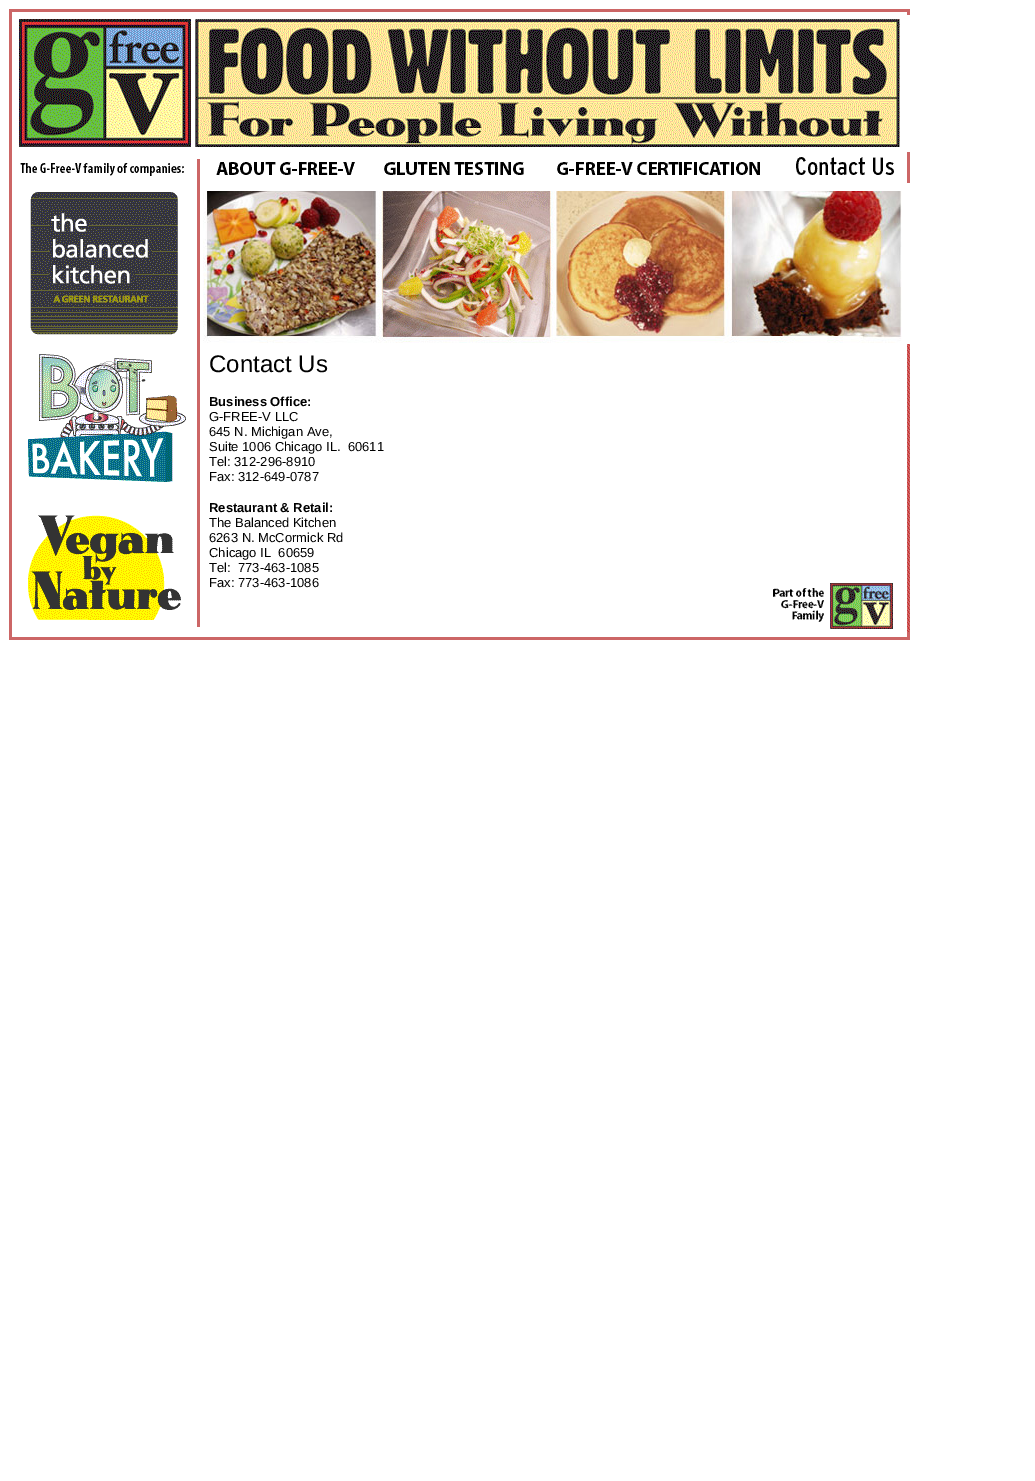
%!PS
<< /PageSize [1035 1481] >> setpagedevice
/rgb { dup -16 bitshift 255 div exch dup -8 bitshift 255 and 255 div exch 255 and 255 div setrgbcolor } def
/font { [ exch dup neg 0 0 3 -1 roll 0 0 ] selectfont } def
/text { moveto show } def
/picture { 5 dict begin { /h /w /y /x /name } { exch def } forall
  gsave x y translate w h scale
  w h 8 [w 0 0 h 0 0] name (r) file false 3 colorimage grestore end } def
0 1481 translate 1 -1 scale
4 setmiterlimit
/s1 { /LiberationSans-Regular 24 font 16#000000 rgb } def
/s2 { /LiberationSans-Bold 13 font 16#000000 rgb } def
/s3 { /LiberationSans-Regular 13 font 16#000000 rgb } def
16#FFFFFF rgb
0 0 1035 1481 rectfill
(pic1.raw) 9 9 901 6 picture
(pic2.raw) 9 15 6 625 picture
(pic3.raw) 19 19 172 128 picture
(pic4.raw) 195 19 705 128 picture
(pic5.raw) 20 163 164 13 picture
16#CC6666 rgb
197 159 3 468 rectfill
(pic6.raw) 216 162 139 13 picture
(pic7.raw) 384 162 140 13 picture
(pic8.raw) 557 162 203 13 picture
(pic9.raw) 796 152 114 31 picture
(pic10.raw) 30 192 148 143 picture
(pic11.raw) 203 191 699 152 picture
(pic12.raw) 28 515 153 105 picture
(pic13.raw) 28 354 158 128 picture
s1
(Contact Us) 209 372 text
s2
(Business Office:) 209 406 text
s3
(G-FREE-V LLC) 209 421 text
(645 N. Michigan Ave,) 209 436 text
(Suite 1006 Chicago IL.  60611) 209 451 text
(Tel: 312-296-8910) 209 466 text
(Fax: 312-649-0787) 209 481 text
s2
(Restaurant & Retail:) 209 512 text
s3
(The Balanced Kitchen) 209 527 text
(6263 N. McCormick Rd) 209 542 text
(Chicago IL  60659) 209 557 text
(Tel:  773-463-1085) 209 572 text
(Fax: 773-463-1086) 209 587 text
(pic14.raw) 773 344 137 288 picture
(pic15.raw) 15 632 895 8 picture
showpage
